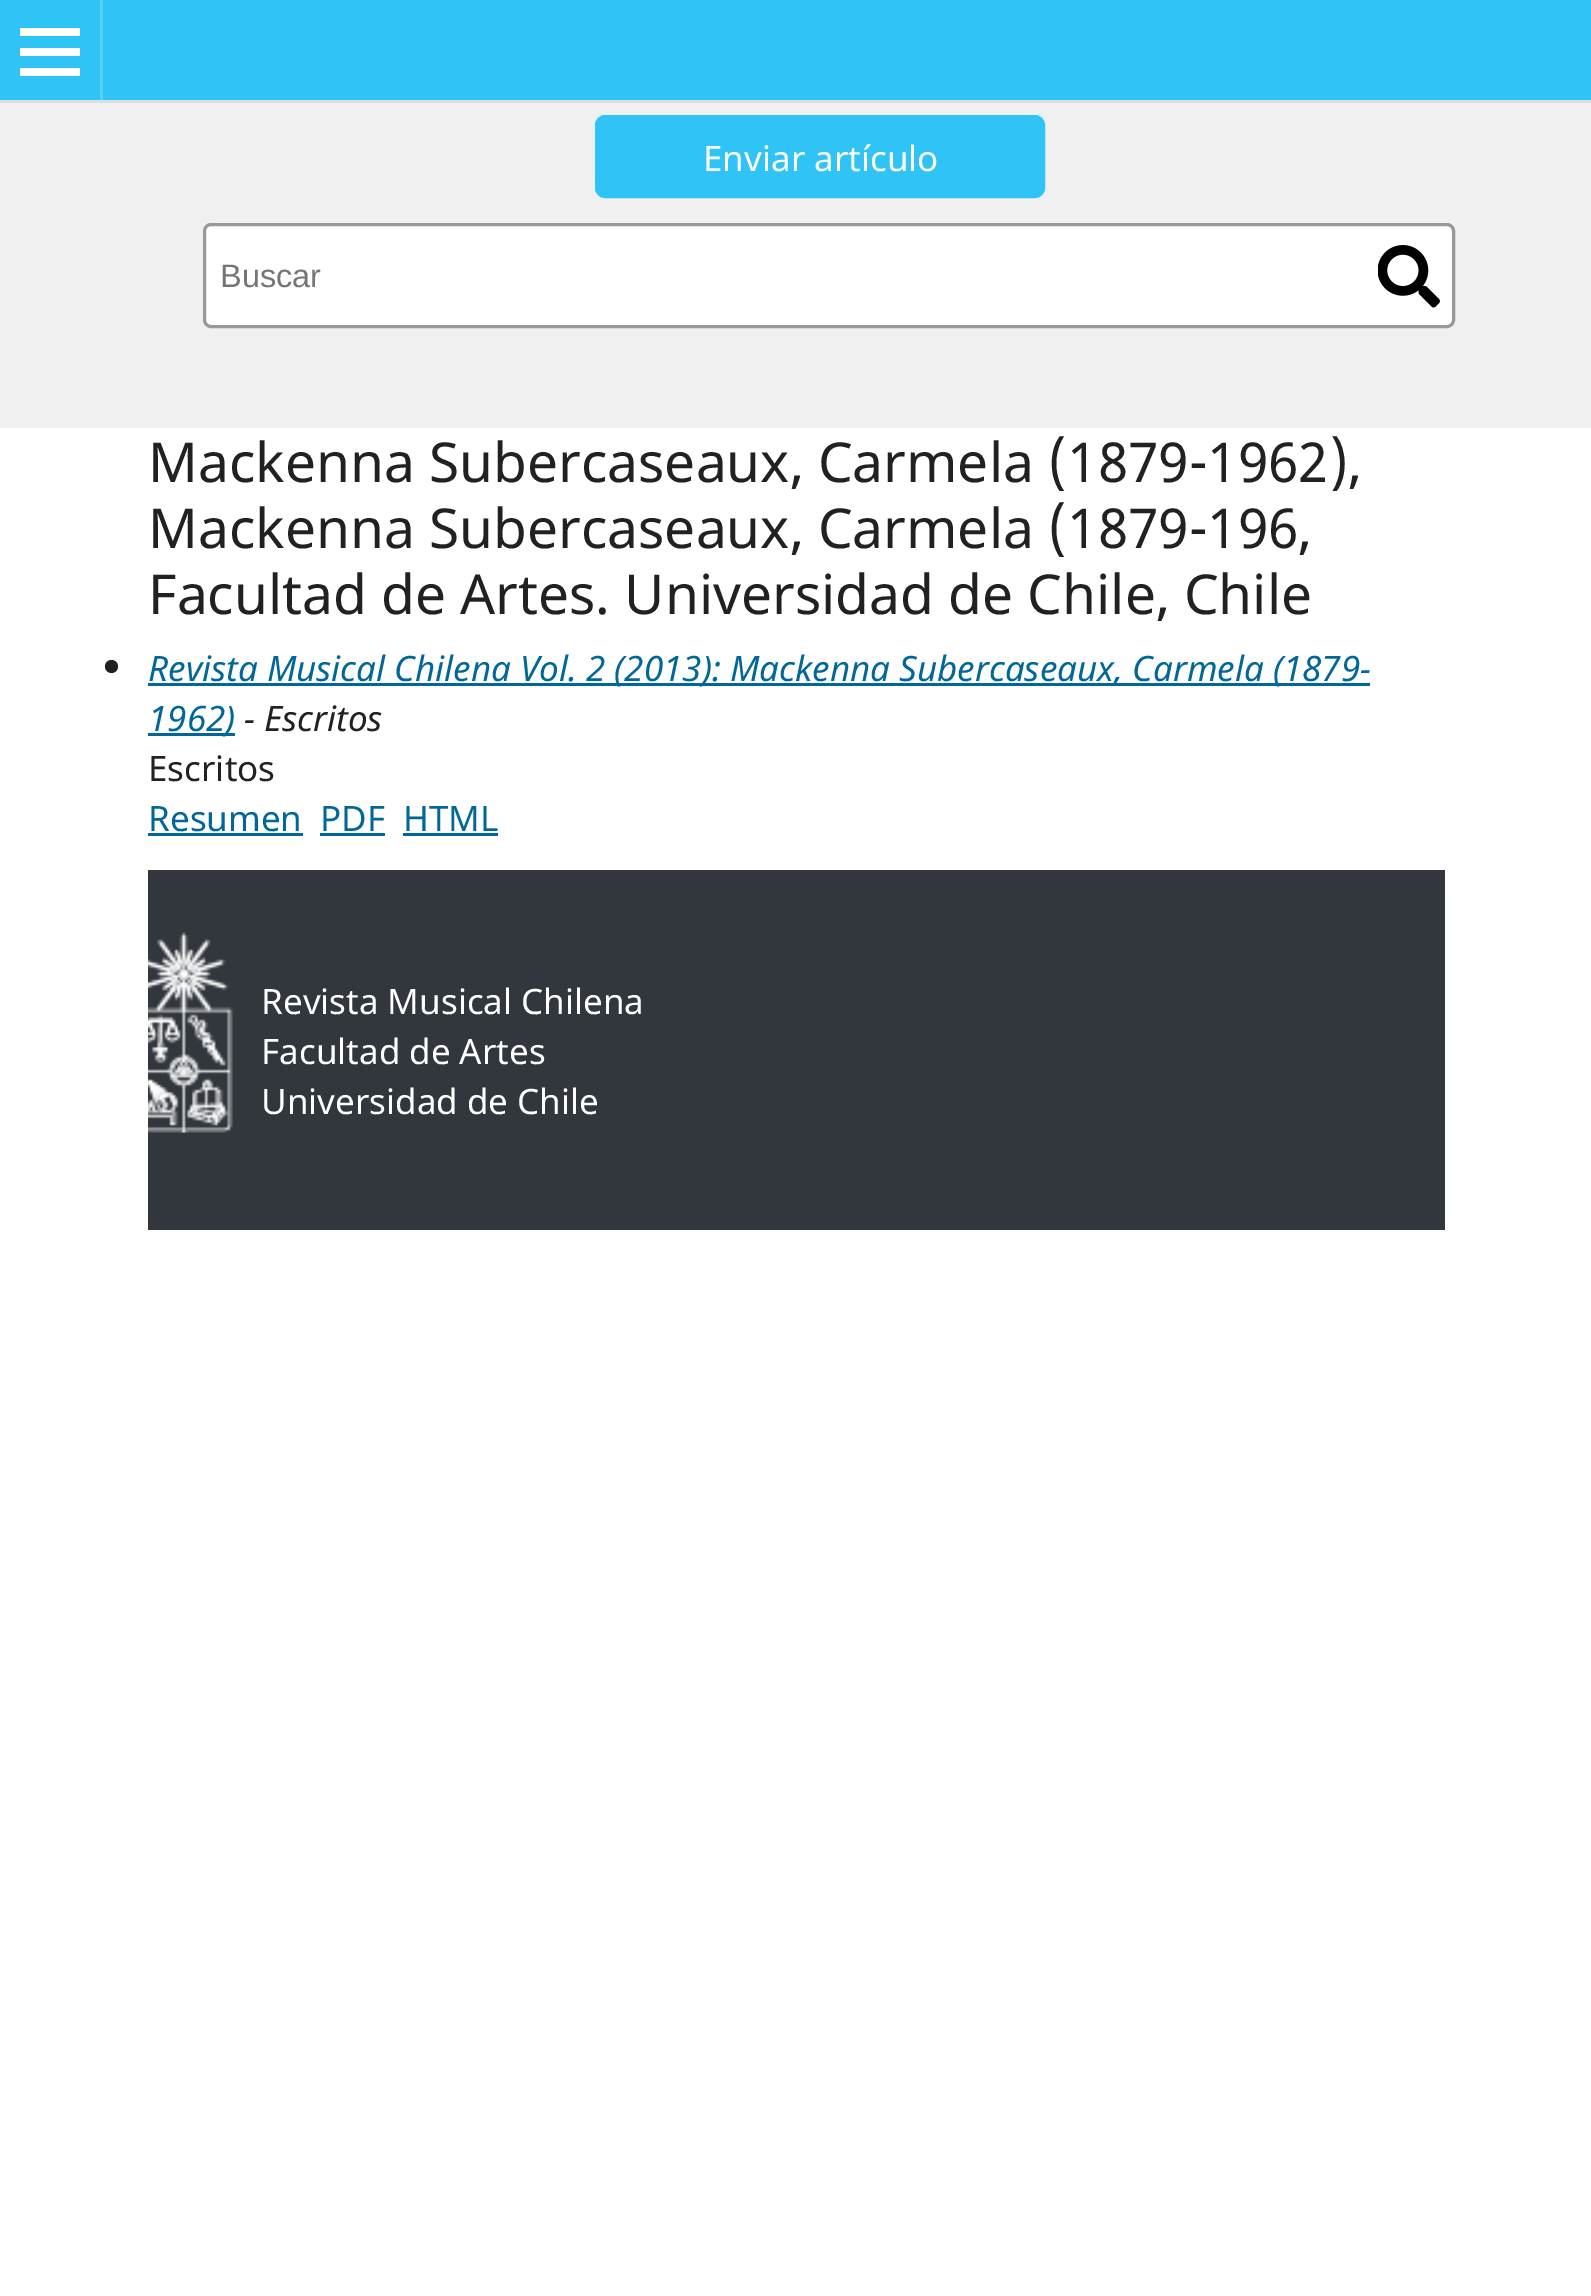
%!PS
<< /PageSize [1591 2296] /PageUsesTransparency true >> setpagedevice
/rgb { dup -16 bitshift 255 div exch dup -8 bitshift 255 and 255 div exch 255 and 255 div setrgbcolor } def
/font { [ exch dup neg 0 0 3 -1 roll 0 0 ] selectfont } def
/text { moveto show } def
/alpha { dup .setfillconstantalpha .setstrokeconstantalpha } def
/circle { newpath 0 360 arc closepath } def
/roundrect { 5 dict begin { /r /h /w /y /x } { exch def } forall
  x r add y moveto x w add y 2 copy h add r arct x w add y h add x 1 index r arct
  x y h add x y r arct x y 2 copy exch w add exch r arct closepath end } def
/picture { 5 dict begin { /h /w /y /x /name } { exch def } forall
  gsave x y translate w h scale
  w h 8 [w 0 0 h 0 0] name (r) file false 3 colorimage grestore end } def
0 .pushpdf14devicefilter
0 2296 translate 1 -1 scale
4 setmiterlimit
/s1 { /NotoSans-Regular 35 font 16#FFFFFF rgb } def
/s2 { /LiberationSans-Regular 32.5 font 16#757575 rgb } def
/s3 { /NotoSans-Regular 55.05 font 16#212121 rgb } def
/s4 { /NotoSans-Italic 35 font 16#006798 rgb } def
/s5 { /NotoSans-Italic 35 font 16#212121 rgb } def
/s6 { /NotoSans-Regular 35 font 16#212121 rgb } def
/s7 { /NotoSans-Regular 35 font 16#006798 rgb } def
16#FFFFFF rgb
0 0 1591 2296 rectfill
16#30C4F6 rgb
0 0 1591 100 rectfill
16#DDDDDD rgb
0 100 1591 3 rectfill
16#59D0F8 rgb
100 0 3 100 rectfill
16#FFFFFF rgb
20 68 60 8 rectfill
20 28 60 8 rectfill
20 48 60 8 rectfill
16#F0F0F0 rgb
0 103 1591 325 rectfill
16#30C4F6 rgb
596.5 116.5 447 80 8.5 roundrect gsave fill grestore
3 setlinewidth
stroke
s1
(Enviar artículo) 703 171 text
203 223 1252 105 8 roundrect fill
0.4 alpha
16#000000 rgb
204.5 224.5 1249 102 6.5 roundrect stroke
1 alpha
s2
(Buscar) 220 287 text
(pic1.raw) 1378 245 62 63 picture
s3
(Mackenna Subercaseaux, Carmela \(1879-1962\),) 148 482 text
(Mackenna Subercaseaux, Carmela \(1879-196,) 148 548 text
(Facultad de Artes. Universidad de Chile, Chile) 148 614 text
111.5 666.5 6.5 circle fill
16#006798 rgb
148 683 1222 3 rectfill
s4
(Revista Musical Chilena Vol. 2 \(2013\): Mackenna Subercaseaux, Carmela \(1879-) 148 681 text
148 733 87 3 rectfill
(1962\)) 148 731 text
s5
(- Escritos) 244 731 text
s6
(Escritos) 148 781 text
s7
(Resumen) 148 831 text
148 833 155 3 rectfill
(PDF) 320 831 text
320 833 65 3 rectfill
(HTML) 403 831 text
403 833 95 3 rectfill
16#32373D rgb
148 870 1297 360 rectfill
(pic2.raw) 148 932 85 201 picture
s1
(Revista Musical Chilena) 261 1014 text
(Facultad de Artes) 261 1064 text
(Universidad de Chile) 261 1114 text
.poppdf14devicefilter showpage
